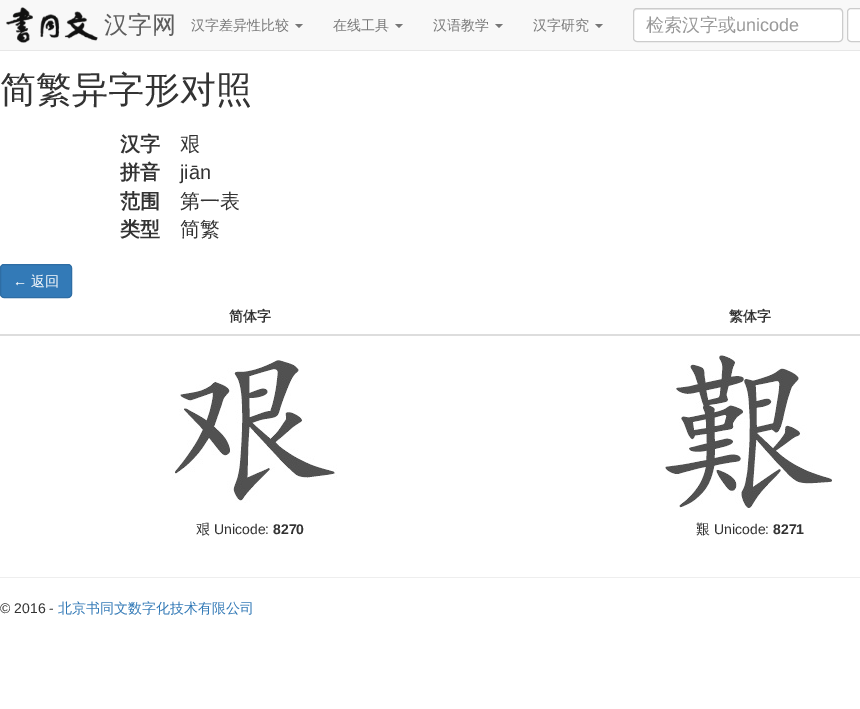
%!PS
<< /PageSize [860 709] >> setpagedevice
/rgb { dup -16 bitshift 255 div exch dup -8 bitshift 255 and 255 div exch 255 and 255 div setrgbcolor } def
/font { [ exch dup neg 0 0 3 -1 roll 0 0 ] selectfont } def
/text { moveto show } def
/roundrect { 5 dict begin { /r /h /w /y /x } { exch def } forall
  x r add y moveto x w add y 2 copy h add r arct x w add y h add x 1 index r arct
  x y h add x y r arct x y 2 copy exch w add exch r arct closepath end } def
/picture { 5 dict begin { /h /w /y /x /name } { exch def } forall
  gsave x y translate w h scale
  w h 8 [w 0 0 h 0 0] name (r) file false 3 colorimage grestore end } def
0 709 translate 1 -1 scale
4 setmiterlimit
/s1 { /WenQuanYiZenHei-Medium 24 font 16#5E5E5E rgb } def
/s2 { /WenQuanYiZenHei-Medium 14 font 16#777777 rgb } def
/s3 { /WenQuanYiZenHei-Medium 18 font 16#999999 rgb } def
/s4 { /LiberationSans-Regular 18 font 16#999999 rgb } def
/s5 { /WenQuanYiZenHei-Medium 36 font 16#333333 rgb } def
/s6 { /WenQuanYiZenHei-Bold 20 font 16#333333 rgb } def
/s7 { /WenQuanYiZenHei-Medium 20 font 16#333333 rgb } def
/s8 { /LiberationSans-Regular 20 font 16#333333 rgb } def
/s9 { /LiberationSans-Regular 14 font 16#FFFFFF rgb } def
/s10 { /WenQuanYiZenHei-Medium 14 font 16#FFFFFF rgb } def
/s11 { /WenQuanYiZenHei-Bold 14 font 16#333333 rgb } def
/s12 { /WenQuanYiZenHei-Medium 14 font 16#333333 rgb } def
/s13 { /LiberationSans-Regular 14 font 16#333333 rgb } def
/s14 { /LiberationSans-Bold 14 font 16#333333 rgb } def
/s15 { /WenQuanYiZenHei-Medium 14 font 16#337AB7 rgb } def
16#FFFFFF rgb
0 0 860 709 rectfill
16#F8F8F8 rgb
0 0 860 50 rectfill
16#E7E7E7 rgb
0 50 860 1 rectfill
(pic1.raw) 6 7 92 36 picture
s1
(汉字网) 104 33 text
s2
(汉字差异性比较) 191 30 text
295 24 moveto 303 24 lineto 299 28 lineto closepath fill
(在线工具) 333 30 text
395 24 moveto 403 24 lineto 399 28 lineto closepath fill
(汉语教学) 433 30 text
495 24 moveto 503 24 lineto 499 28 lineto closepath fill
(汉字研究) 533 30 text
595 24 moveto 603 24 lineto 599 28 lineto closepath fill
16#FFFFFF rgb
633 8 210 34 4 roundrect fill
16#ECECEC rgb
637 10 moveto 839 10 lineto 841 10 842 11 842 13 curveto 842 11 841 9 839 9 curveto 636 9 lineto 634 10 634 11 634 13 curveto 634 11 635 10 637 10 curveto closepath fill
16#CCCCCC rgb
633.5 8.5 209 33 3.5 roundrect stroke
s3
(检索汉字或) 646 31 text
s4
(unicode) 736 31 text
16#FFFFFF rgb
847.5 8.5 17 33 3.5 roundrect gsave fill grestore
16#CCCCCC rgb
stroke
s5
(简繁异字形对照) 0 102 text
s6
(汉字) 120 151 text
s7
(艰) 180 151 text
s6
(拼音) 120 179 text
s8
(jiān) 180 179 text
s6
(范围) 120 208 text
s7
(第一表) 180 208 text
s6
(类型) 120 236 text
s7
(简繁) 180 236 text
16#337AB7 rgb
0.5 264.5 71 33 3.5 roundrect gsave fill grestore
16#2E6DA4 rgb
stroke
s9
(←) 13 286 text
s10
(返回) 31 286 text
s11
(简体字) 229 321 text
16#DDDDDD rgb
0 334 860 2 rectfill
s11
(繁体字) 729 321 text
(pic2.raw) 172 360 165 143 picture
s12
(艰) 196 534 text
s13
(Unicode:) 214 534 text
s14
(8270) 273 534 text
(pic3.raw) 665 352 167 158 picture
s12
(艱) 696 534 text
s13
(Unicode:) 714 534 text
s14
(8271) 773 534 text
16#EEEEEE rgb
0 577 860 1 rectfill
s13
(© 2016 -) 0 613 text
s15
(北京书同文数字化技术有限公司) 58 613 text
showpage
